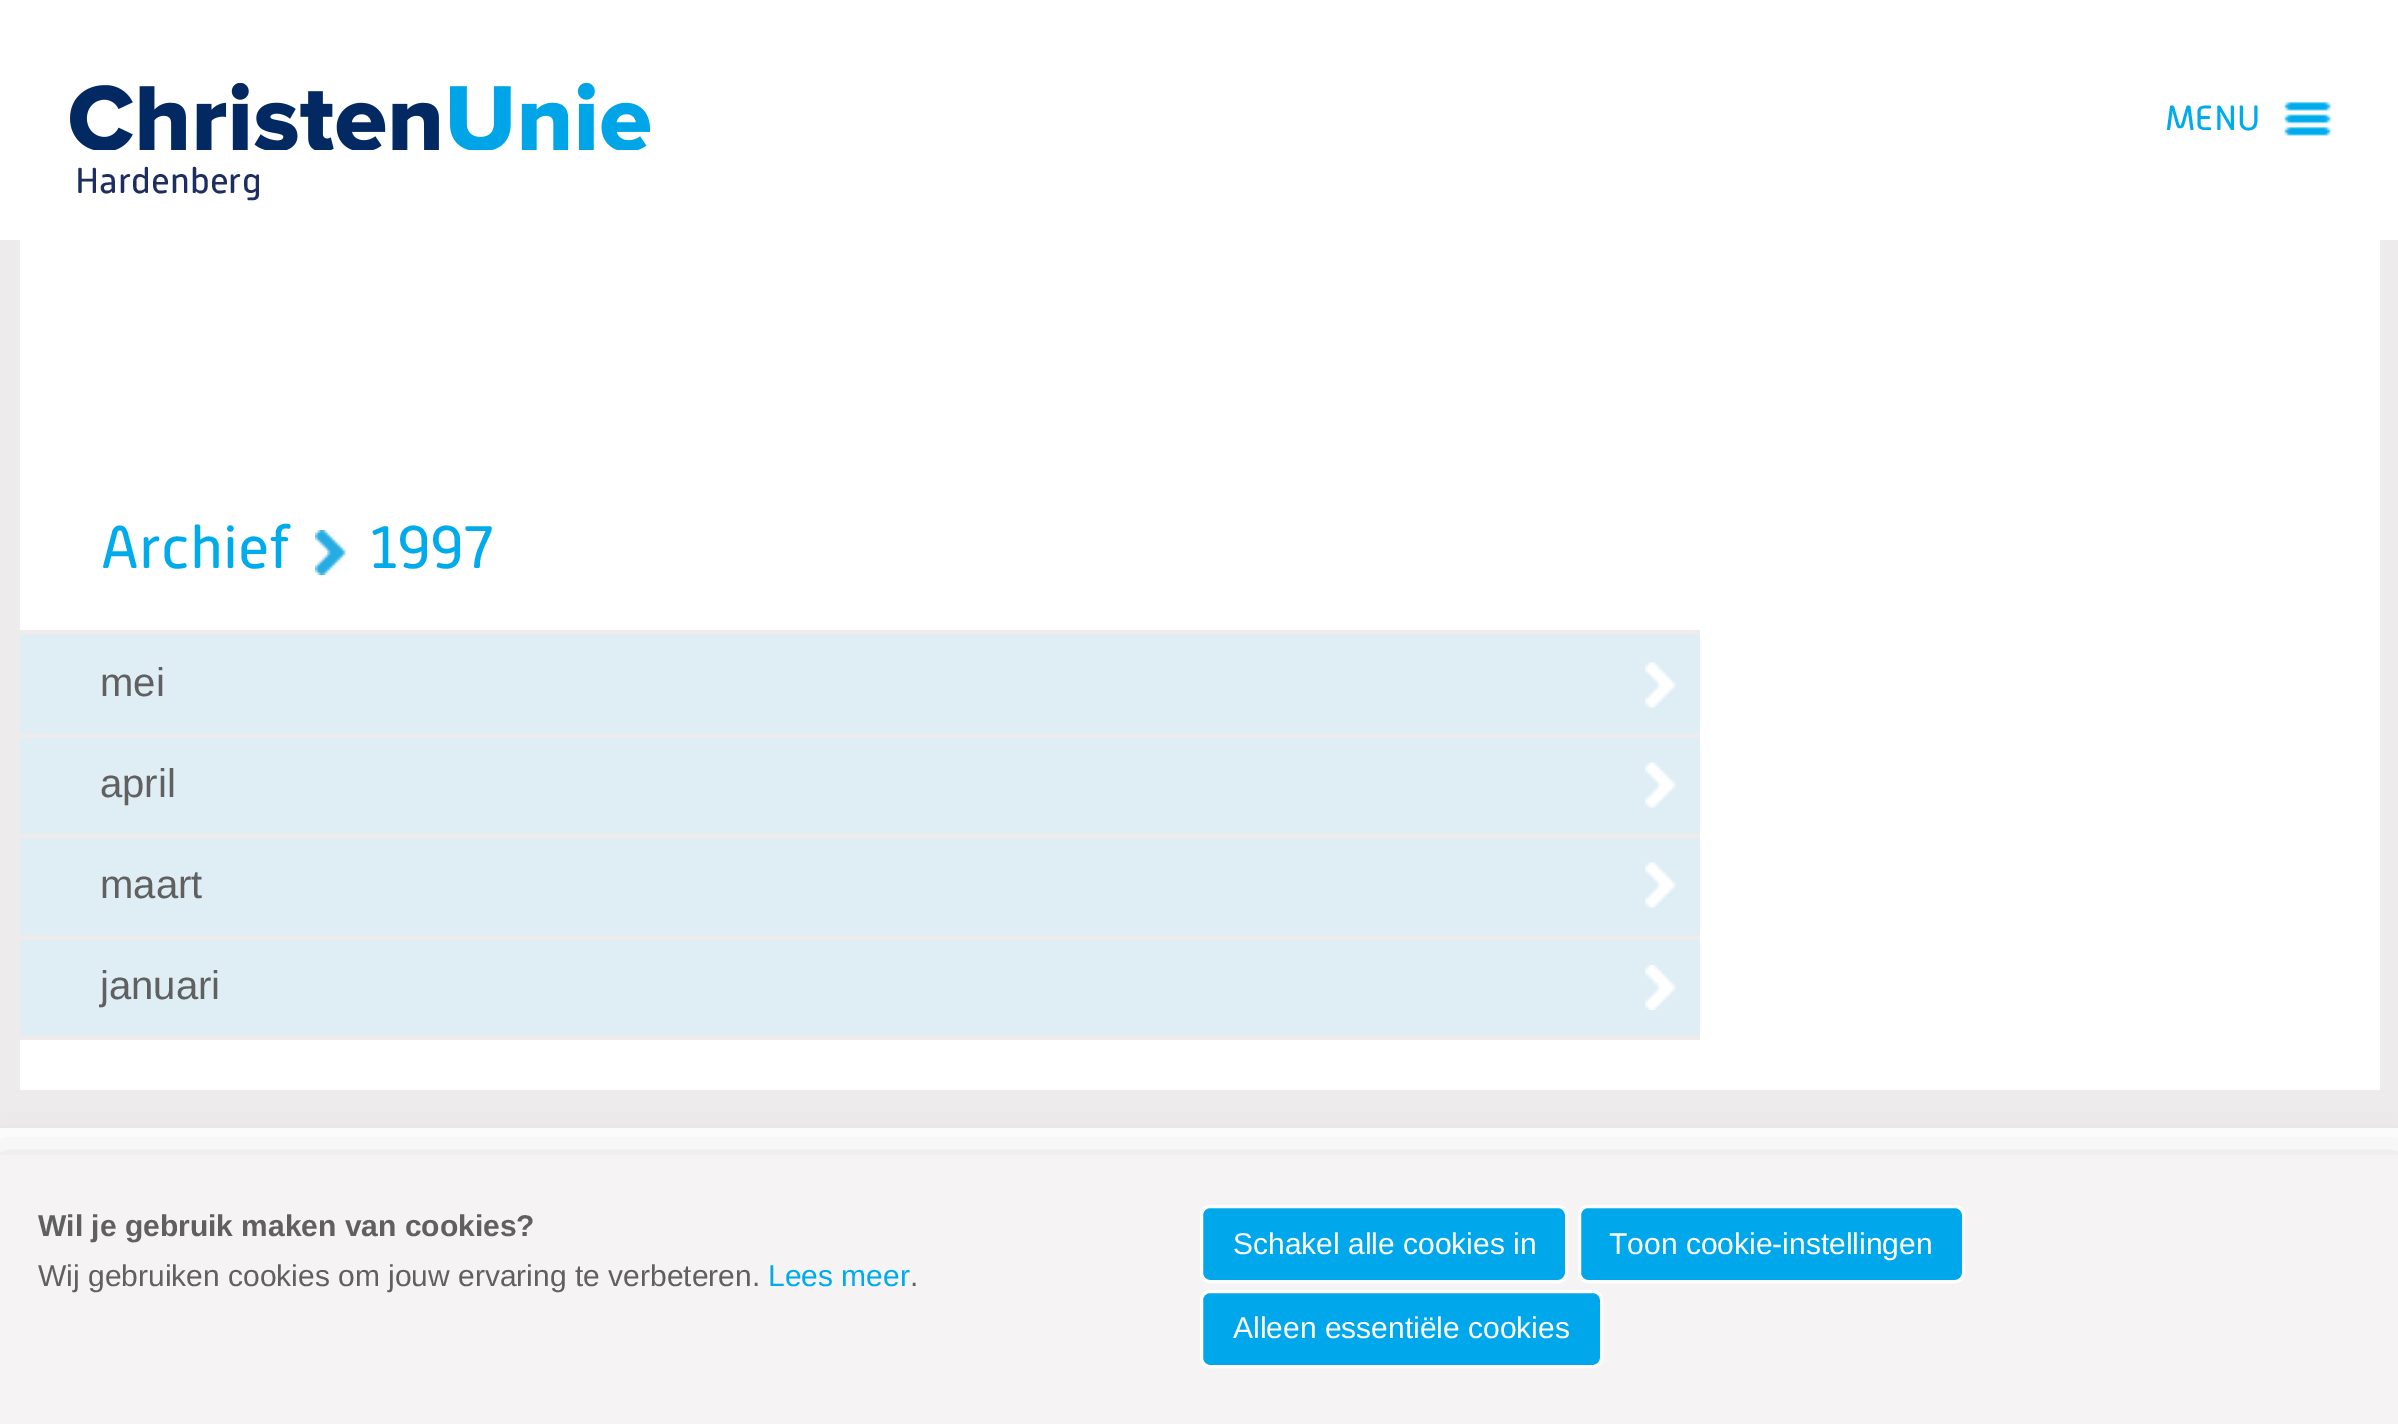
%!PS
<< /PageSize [2398 1424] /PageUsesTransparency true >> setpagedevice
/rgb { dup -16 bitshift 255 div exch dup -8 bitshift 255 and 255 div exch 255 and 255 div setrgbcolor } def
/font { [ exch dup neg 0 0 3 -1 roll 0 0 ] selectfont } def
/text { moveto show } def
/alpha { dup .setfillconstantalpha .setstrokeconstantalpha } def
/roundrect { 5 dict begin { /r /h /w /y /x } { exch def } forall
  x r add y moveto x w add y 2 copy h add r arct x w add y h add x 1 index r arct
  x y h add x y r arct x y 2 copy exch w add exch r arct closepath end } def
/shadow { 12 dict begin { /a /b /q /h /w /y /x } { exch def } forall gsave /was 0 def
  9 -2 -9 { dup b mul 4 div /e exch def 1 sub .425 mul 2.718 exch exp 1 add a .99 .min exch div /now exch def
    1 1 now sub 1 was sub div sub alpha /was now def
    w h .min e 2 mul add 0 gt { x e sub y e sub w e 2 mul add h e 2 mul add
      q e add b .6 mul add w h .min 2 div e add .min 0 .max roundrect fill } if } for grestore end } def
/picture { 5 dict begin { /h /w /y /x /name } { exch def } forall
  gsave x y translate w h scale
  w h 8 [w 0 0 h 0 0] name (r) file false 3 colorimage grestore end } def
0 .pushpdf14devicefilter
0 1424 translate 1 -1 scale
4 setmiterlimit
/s1 { /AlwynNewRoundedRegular-Regular 35 font 16#00ABEC rgb } def
/s2 { /AlwynNewRoundedRegular-Regular 36 font 16#1F2E61 rgb } def
/s3 { /AlwynNewRoundedRegular-Regular 60 font 16#00ABEC rgb } def
/s4 { /LiberationSans-Regular 40 font 16#606060 rgb } def
/s5 { /LiberationSans-Bold 30 font 16#606060 rgb } def
/s6 { /LiberationSans-Regular 30 font 16#606060 rgb } def
/s7 { /LiberationSans-Regular 30 font 16#00ABEC rgb } def
/s8 { /LiberationSans-Regular 30 font 16#FFFFFF rgb } def
16#EDEBEB rgb
0 0 2398 1424 rectfill
16#FFFFFF rgb
0 0 2398 240 rectfill
(pic1.raw) 2284 101 47 35 picture
s1
(MENU) 2165 130 text
(pic2.raw) 70 83 580 67 picture
s2
(Hardenberg) 75 193 text
16#FFFFFF rgb
20 240 2360 850 rectfill
s3
(Archief) 100 568 text
(pic3.raw) 315 530 31 45 picture
(1997) 369 568 text
16#EDEBEB rgb
20 630 1680 5 rectfill
16#DEEEF4 rgb
20 650 1680 68 rectfill
16#EDEBEB rgb
20 733 1680 5 rectfill
gsave
20 373 1680 667 rectclip
16#DEEEF4 rgb
15 setlinewidth
12.5 642.5 1695 83 rectstroke
grestore
(pic4.raw) 1645 662 31 46 picture
s4
(mei) 100 696 text
16#DEEEF4 rgb
20 753 1680 65 rectfill
16#EDEBEB rgb
20 833 1680 5 rectfill
gsave
20 373 1680 667 rectclip
16#DEEEF4 rgb
15 setlinewidth
12.5 745.5 1695 80 rectstroke
grestore
(pic4.raw) 1645 762 31 46 picture
s4
(april) 100 797 text
16#DEEEF4 rgb
20 853 1680 67 rectfill
16#EDEBEB rgb
20 935 1680 5 rectfill
gsave
20 373 1680 667 rectclip
16#DEEEF4 rgb
15 setlinewidth
12.5 845.5 1695 82 rectstroke
grestore
(pic4.raw) 1645 862 31 46 picture
s4
(maart) 100 898 text
16#DEEEF4 rgb
20 955 1680 65 rectfill
16#EDEBEB rgb
20 1035 1680 5 rectfill
gsave
20 373 1680 667 rectclip
16#DEEEF4 rgb
15 setlinewidth
12.5 947.5 1695 80 rectstroke
grestore
(pic5.raw) 1645 965 31 45 picture
s4
(januari) 100 999 text
16#FFFFFF rgb
0 1128 2398 27 rectfill
16#000000 rgb
0 1168 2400 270 0 25 0.2 shadow
16#F5F3F3 rgb
0 1155 2398 269 rectfill
s5
(Wil je gebruik maken van cookies?) 38 1236 text
s6
(Wij gebruiken cookies om jouw ervaring te verbeteren.) 38 1286 text
s7
(Lees meer) 768 1286 text
s6
(.) 910 1286 text
16#00A7EB rgb
1201.5 1206.5 365 75 8.5 roundrect gsave fill grestore
16#FFFFFF rgb
3 setlinewidth
stroke
(Schakel alle cookies in) 1233 1254 text
16#00A7EB rgb
1579.5 1206.5 384 75 8.5 roundrect gsave fill grestore
16#FFFFFF rgb
stroke
(Toon cookie-instellingen) 1609 1254 text
16#00A7EB rgb
1201.5 1291.5 400 75 8.5 roundrect gsave fill grestore
16#FFFFFF rgb
stroke
(Alleen essentiële cookies) 1233 1338 text
.poppdf14devicefilter showpage
